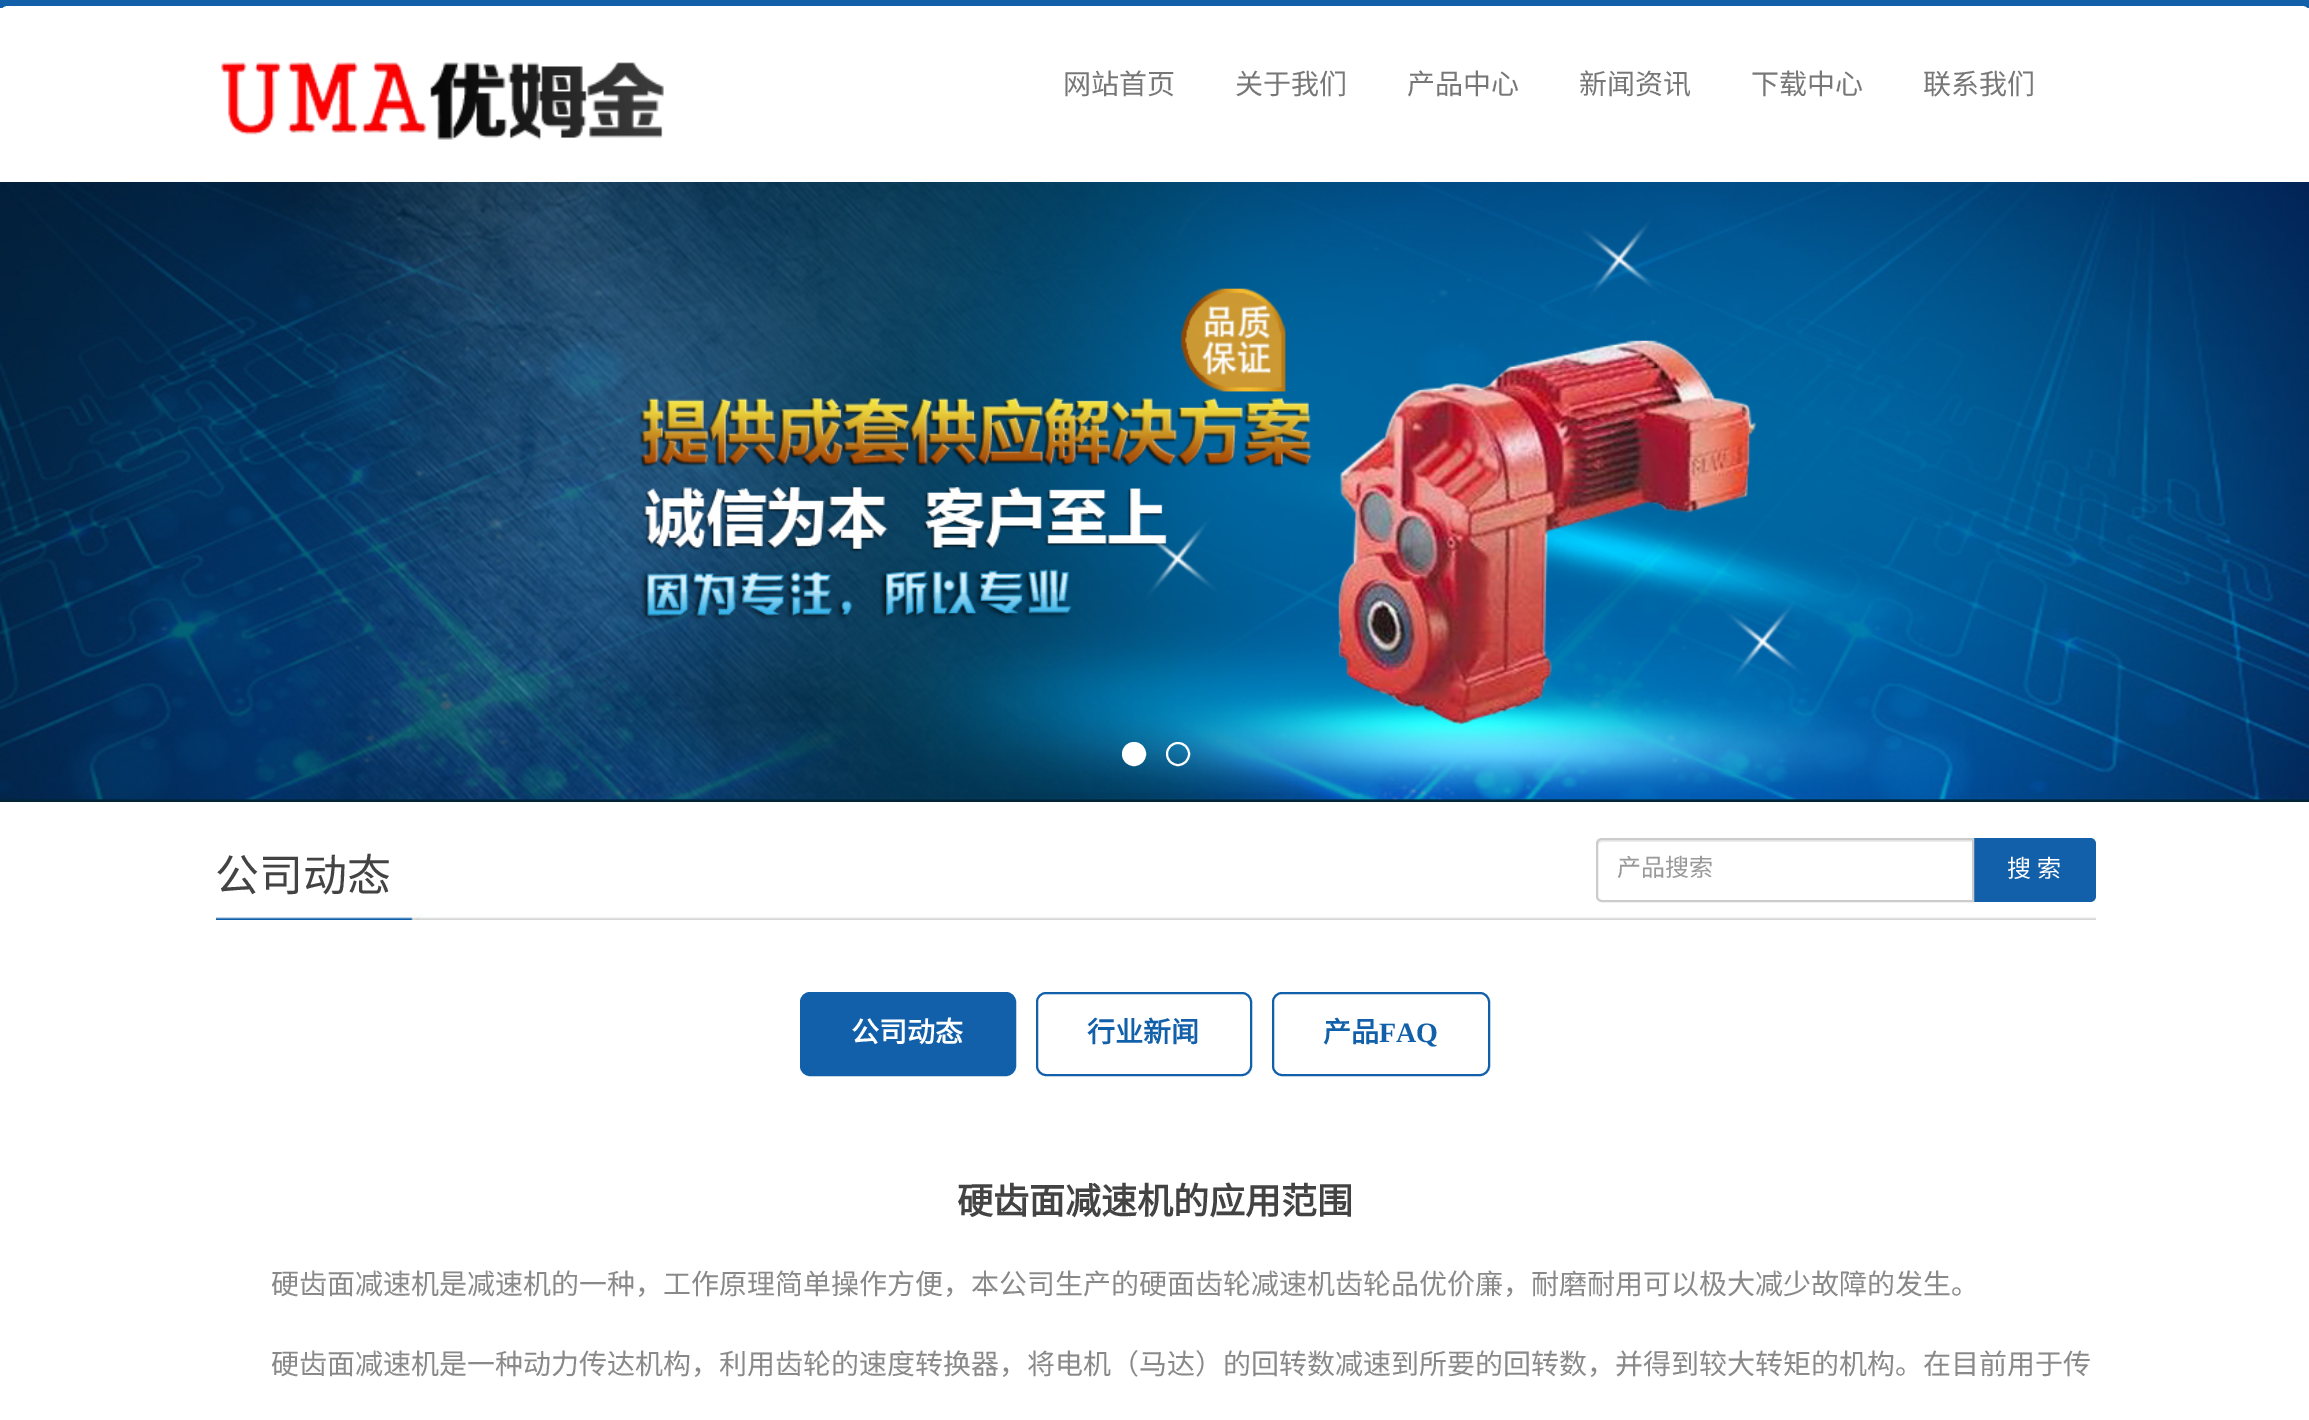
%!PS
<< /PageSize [2309 1420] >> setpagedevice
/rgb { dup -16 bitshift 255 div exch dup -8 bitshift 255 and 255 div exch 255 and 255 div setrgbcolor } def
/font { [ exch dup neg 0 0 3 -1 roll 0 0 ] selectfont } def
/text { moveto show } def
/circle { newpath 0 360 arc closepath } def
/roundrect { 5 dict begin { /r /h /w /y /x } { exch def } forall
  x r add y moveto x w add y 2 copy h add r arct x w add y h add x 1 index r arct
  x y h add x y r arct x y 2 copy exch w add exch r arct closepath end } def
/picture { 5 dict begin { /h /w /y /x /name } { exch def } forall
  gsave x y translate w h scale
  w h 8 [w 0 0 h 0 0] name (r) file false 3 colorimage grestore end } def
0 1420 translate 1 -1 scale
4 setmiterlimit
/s1 { /NotoSansCJKSC-Regular 28 font 16#777777 rgb } def
/s2 { /NotoSansCJKSC-Regular 44 font 16#434343 rgb } def
/s3 { /NotoSansCJKSC-Regular 24 font 16#999999 rgb } def
/s4 { /NotoSansCJKSC-Bold 28 font 16#FFFFFF rgb } def
/s5 { /NotoSansCJKSC-Bold 28 font 16#1260AA rgb } def
/s6 { /LiberationSerif-Bold 28 font 16#1260AA rgb } def
/s7 { /NotoSansCJKSC-Bold 36 font 16#434343 rgb } def
/s8 { /NotoSansCJKSC-Regular 28 font 16#898989 rgb } def
16#FFFFFF rgb
0 0 2309 1420 rectfill
16#1260AA rgb
0 0 2309 8 rectfill
16#FFFFFF rgb
0 6 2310 176 8 roundrect fill
(pic1.raw) 221 62 443 78 picture
s1
(网站首页) 1063 94 text
(关于我们) 1235 94 text
(产品中心) 1407 94 text
(新闻资讯) 1579 94 text
(下载中心) 1751 94 text
(联系我们) 1923 94 text
(pic2.raw) 0 182 2309 620 picture
16#FFFFFF rgb
1134 754 11 circle gsave fill grestore
2 setlinewidth
stroke
1178 754 11 circle stroke
(pic3.raw) 216 914 1880 6 picture
s2
(公司动态) 215 891 text
16#1260AA rgb
1972 838 moveto 2090 838 lineto 2093.5 838 2096 840.5 2096 844 curveto 2096 896 lineto 2096 899.5 2093.5 902 2090 902 curveto 1972 902 lineto closepath fill
16#FFFFFF rgb
1602 838 moveto 1974 838 lineto 1974 902 lineto 1602 902 lineto 1598.5 902 1596 899.5 1596 896 curveto 1596 844 lineto 1596 840.5 1598.5 838 1602 838 curveto closepath fill
16#ECECEC rgb
1602 842 moveto 1972 842 lineto 1972 840 lineto 1602 840 lineto 1600 840 1598 842 1598 844 curveto 1598 846 lineto 1598 844 1600 842 1602 842 curveto closepath fill
16#CCCCCC rgb
1602 839 moveto 1973 839 lineto 1973 901 lineto 1602 901 lineto 1599 901 1597 899 1597 896 curveto 1597 844 lineto 1597 841 1599 839 1602 839 curveto closepath stroke
s3
(产品搜索) 1617 876 text
16#FFFFFF rgb
2007 877 moveto 1 0 32 (搜 索) widthshow
16#1260AA rgb
801 993 214 82 9 roundrect gsave fill grestore
stroke
s4
(公司动态) 851 1042 text
16#1260AA rgb
1037 993 214 82 9 roundrect stroke
(行业新闻) 1087 1042 text
1273 993 216 82 9 roundrect stroke
(产品) 1323 1042 text
s6
(FAQ) 1379 1042 text
s7
(硬齿面减速机的应用范围) 957 1214 text
s8
(硬齿面减速机是减速机的一种，工作原理简单操作方便，本公司生产的硬面齿轮减速机齿轮品优价廉，耐磨耐用可以极大减少故障的发生。) 271 1294 text
(硬齿面减速机是一种动力传达机构，利用齿轮的速度转换器，将电机（马达）的回转数减速到所要的回转数，并得到较大转矩的机构。在目前用于传) 271 1374 text
showpage
